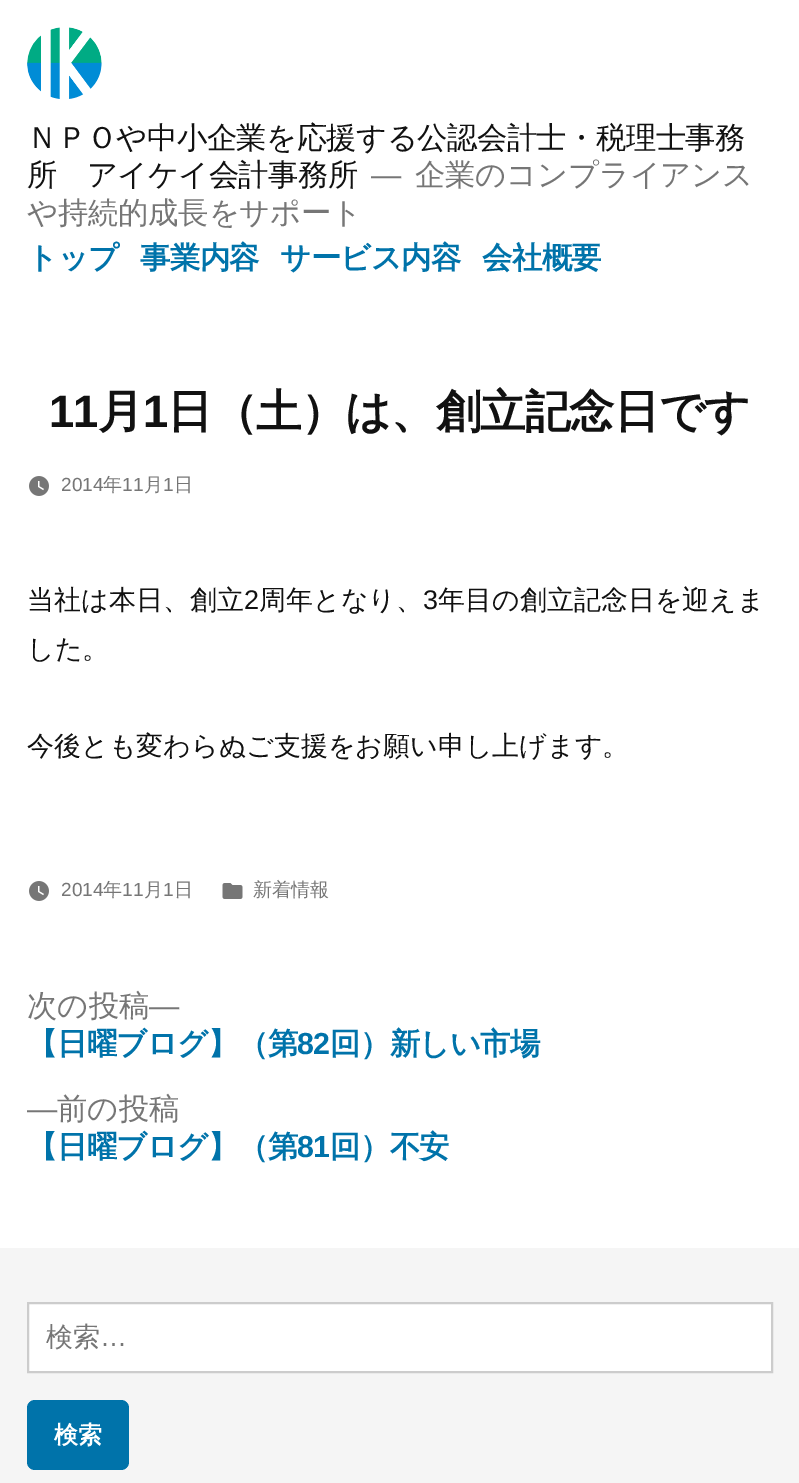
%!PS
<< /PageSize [799 1483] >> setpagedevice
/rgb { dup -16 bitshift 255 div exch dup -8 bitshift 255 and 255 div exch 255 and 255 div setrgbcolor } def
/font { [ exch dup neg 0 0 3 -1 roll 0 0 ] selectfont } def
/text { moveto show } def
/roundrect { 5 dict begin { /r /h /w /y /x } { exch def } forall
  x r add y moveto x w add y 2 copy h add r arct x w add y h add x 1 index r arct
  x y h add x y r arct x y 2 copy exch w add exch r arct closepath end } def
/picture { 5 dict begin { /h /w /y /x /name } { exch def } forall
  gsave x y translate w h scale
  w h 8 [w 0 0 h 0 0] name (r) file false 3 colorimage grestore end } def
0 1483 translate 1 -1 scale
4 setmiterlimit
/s1 { /LiberationSans-Regular 19 font 16#767676 rgb } def
/s2 { /WenQuanYiZenHei-Medium 19 font 16#767676 rgb } def
/s3 { /WenQuanYiZenHei-Medium 27 font 16#111111 rgb } def
/s4 { /LiberationSans-Regular 27 font 16#111111 rgb } def
/s5 { /WenQuanYiZenHei-Medium 30.4 font 16#767676 rgb } def
/s6 { /LiberationSans-Regular 30.4 font 16#767676 rgb } def
/s7 { /WenQuanYiZenHei-Medium 27 font 16#767676 rgb } def
/s8 { /LiberationSans-Regular 27 font 16#767676 rgb } def
/s9 { /WenQuanYiZenHei-Bold 24 font 16#FFFFFF rgb } def
16#FFFFFF rgb
0 0 799 1483 rectfill
(pic1.raw) 27 27 75 72 picture
/WenQuanYiZenHei-Medium 30.4 font
16#111111 rgb
27 148 moveto -0.6 0 (ＮＰＯや中小企業を応援する公認会計士・税理士事務) ashow
27 185 moveto -0.6 0 (所　アイケイ会計事務所) ashow
/LiberationSans-Regular 30.4 font
16#767676 rgb
371 185 moveto -0.25 0 (—) ashow
/WenQuanYiZenHei-Medium 30.4 font
415 185 moveto -0.25 0 (企業のコンプライアンス) ashow
27 223 moveto -0.25 0 (や持続的成長をサポート) ashow
/WenQuanYiZenHei-Bold 30.4 font
16#0073AA rgb
27 268 moveto -0.6 0 (トップ) ashow
140 268 moveto -0.6 0 (事業内容) ashow
280 268 moveto -0.6 0 (サービス内容) ashow
482 268 moveto -0.6 0 (会社概要) ashow
/LiberationSans-Bold 45.5 font
16#111111 rgb
49 427 moveto -0.9 0 (11) ashow
/WenQuanYiZenHei-Bold 45.5 font
98 427 moveto -0.9 0 (月) ashow
/LiberationSans-Bold 45.5 font
143 427 moveto -0.9 0 (1) ashow
/WenQuanYiZenHei-Bold 45.5 font
167 427 moveto -0.9 0 (日（土）は、創立記念日です) ashow
(pic2.raw) 29 476 20 20 picture
s1
(2014) 61 491 text
s2
(年) 103 491 text
s1
(11) 122 491 text
s2
(月) 144 491 text
s1
(1) 163 491 text
s2
(日) 174 491 text
s3
(当社は本日、創立) 27 609 text
s4
(2) 244 609 text
s3
(周年となり、) 259 609 text
s4
(3) 423 609 text
s3
(年目の創立記念日を迎えま) 438 609 text
(した。) 27 658 text
(今後とも変わらぬご支援をお願い申し上げます。) 27 755 text
(pic2.raw) 29 881 20 20 picture
s1
(2014) 61 896 text
s2
(年) 103 896 text
s1
(11) 122 896 text
s2
(月) 144 896 text
s1
(1) 163 896 text
s2
(日) 174 896 text
(pic3.raw) 222 883 21 16 picture
(新着情報) 253 896 text
s5
(次の投稿) 27 1016 text
s6
(—) 149 1016 text
/WenQuanYiZenHei-Bold 30.4 font
16#0073AA rgb
27 1054 moveto -0.6 0 (【日曜ブログ】（第) ashow
/LiberationSans-Bold 30.4 font
297 1054 moveto -0.6 0 (82) ashow
/WenQuanYiZenHei-Bold 30.4 font
330 1054 moveto -0.6 0 (回）新しい市場) ashow
s6
(—) 27 1119 text
s5
(前の投稿) 57 1119 text
/WenQuanYiZenHei-Bold 30.4 font
16#0073AA rgb
27 1157 moveto -0.6 0 (【日曜ブログ】（第) ashow
/LiberationSans-Bold 30.4 font
297 1157 moveto -0.6 0 (81) ashow
/WenQuanYiZenHei-Bold 30.4 font
330 1157 moveto -0.6 0 (回）不安) ashow
16#F5F5F5 rgb
0 1248 799 235 rectfill
16#FFFFFF rgb
28 1303 moveto 772 1303 lineto 772 1372 lineto 28 1372 lineto closepath gsave fill grestore
16#CCCCCC rgb
2 setlinewidth
stroke
s7
(検索) 46 1346 text
s8
(…) 100 1346 text
16#0073AA rgb
27 1400 102 70 8 roundrect fill
s9
(検索) 54 1443 text
showpage
